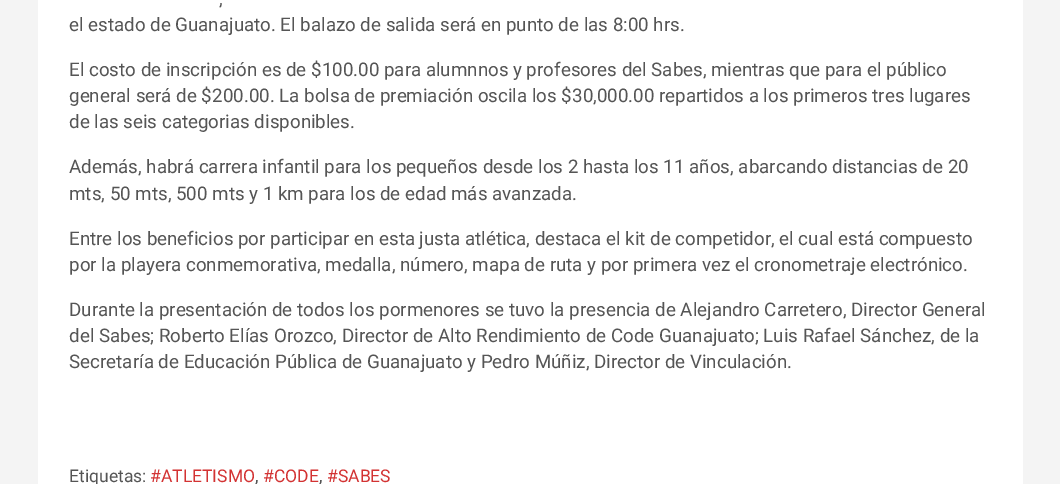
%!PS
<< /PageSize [1060 484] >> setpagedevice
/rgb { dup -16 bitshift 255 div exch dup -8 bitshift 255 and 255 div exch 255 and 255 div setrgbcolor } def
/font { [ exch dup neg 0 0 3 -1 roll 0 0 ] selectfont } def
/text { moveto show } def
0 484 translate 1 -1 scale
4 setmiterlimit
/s1 { /Roboto-Regular 18.75 font 16#555555 rgb } def
/s2 { /Roboto-Regular 17.5 font 16#555555 rgb } def
/s3 { /Roboto-Regular 17.5 font 16#D33333 rgb } def
16#F4F4F4 rgb
0 0 1060 484 rectfill
16#FFFFFF rgb
38 0 985 484 rectfill
s1
(,) 219 5 text
(el estado de Guanajuato. El balazo de salida será en punto de las 8:00 hrs.) 69 31 text
(El costo de inscripción es de $100.00 para alumnnos y profesores del Sabes, mientras que para el público) 69 76 text
(general será de $200.00. La bolsa de premiación oscila los $30,000.00 repartidos a los primeros tres lugares) 69 102 text
(de las seis categorias disponibles.) 69 128 text
(Además, habrá carrera infantil para los pequeños desde los 2 hasta los 11 años, abarcando distancias de 20) 69 173 text
(mts, 50 mts, 500 mts y 1 km para los de edad más avanzada.) 69 200 text
(Entre los beneficios por participar en esta justa atlética, destaca el kit de competidor, el cual está compuesto) 69 245 text
(por la playera conmemorativa, medalla, número, mapa de ruta y por primera vez el cronometraje electrónico.) 69 271 text
(Durante la presentación de todos los pormenores se tuvo la presencia de Alejandro Carretero, Director General) 69 316 text
(del Sabes; Roberto Elías Orozco, Director de Alto Rendimiento de Code Guanajuato; Luis Rafael Sánchez, de la) 69 342 text
(Secretaría de Educación Pública de Guanajuato y Pedro Múñiz, Director de Vinculación.) 69 368 text
s2
(Etiquetas:) 69 482 text
s3
(#ATLETISMO) 150 482 text
s2
(,) 255 482 text
s3
(#CODE) 263 482 text
s2
(,) 319 482 text
s3
(#SABES) 327 482 text
showpage
